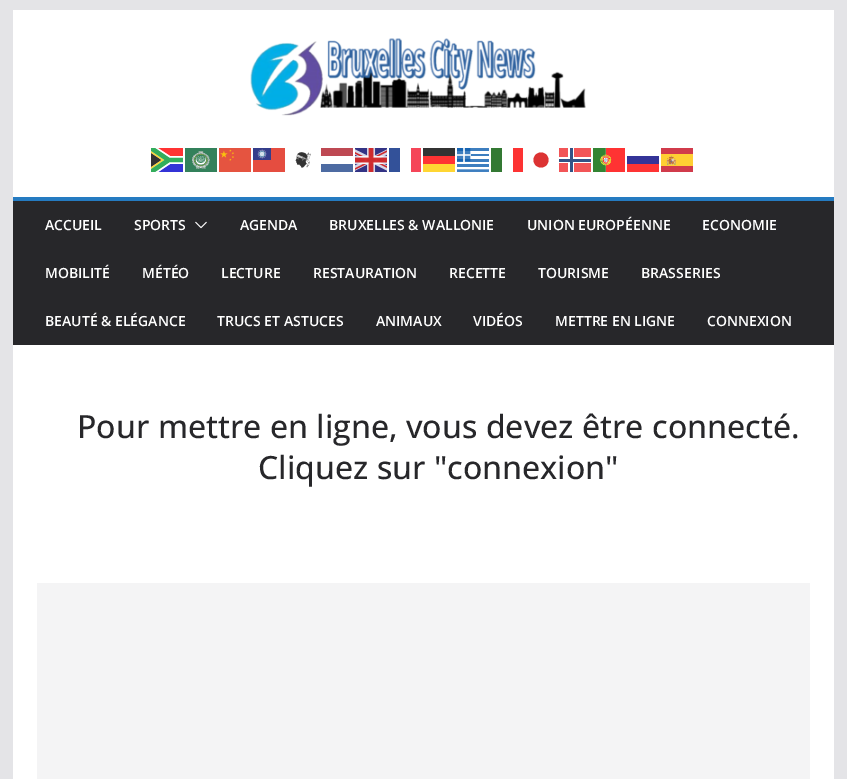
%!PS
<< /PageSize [847 779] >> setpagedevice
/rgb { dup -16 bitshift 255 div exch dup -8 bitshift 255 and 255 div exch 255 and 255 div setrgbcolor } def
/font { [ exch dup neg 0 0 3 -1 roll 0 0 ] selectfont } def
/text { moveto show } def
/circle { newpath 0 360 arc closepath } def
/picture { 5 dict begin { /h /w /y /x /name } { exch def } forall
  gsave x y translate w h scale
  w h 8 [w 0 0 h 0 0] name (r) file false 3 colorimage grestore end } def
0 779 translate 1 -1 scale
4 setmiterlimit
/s1 { /OpenSans-SemiBold 14 font 16#FFFFFF rgb } def
/s2 { /OpenSans-Medium 32 font 16#27272A rgb } def
16#E4E4E7 rgb
0 0 847 779 rectfill
16#FFFFFF rgb
13 10 821 187 rectfill
(pic1.raw) 250 38 336 78 picture
(pic2.raw) 151 148 32 24 picture
(pic3.raw) 185 148 32 24 picture
(pic4.raw) 219 148 32 24 picture
(pic5.raw) 253 148 32 24 picture
16#BE4953 rgb
321 148 32 8 rectfill
(pic6.raw) 355 148 32 24 picture
16#335199 rgb
389 148 11 24 rectfill
16#F54659 rgb
411 148 10 24 rectfill
16#333333 rgb
423 148 32 8 rectfill
(pic7.raw) 457 148 32 24 picture
16#337933 rgb
491 148 11 24 rectfill
16#FD3333 rgb
513 148 10 24 rectfill
16#F25557 rgb
559 148 32 24 rectfill
16#FFFFFF rgb
568 148 6 24 rectfill
(pic8.raw) 295 152 16 16 picture
16#FF3333 rgb
423 156 32 8 rectfill
16#DC3333 rgb
541 160 7.5 circle fill
16#FFFFFF rgb
559 157 32 6 rectfill
16#335386 rgb
570 148 3 24 rectfill
(pic9.raw) 593 148 32 24 picture
16#343498 rgb
627 156 32 8 rectfill
(pic10.raw) 661 148 32 24 picture
16#335386 rgb
559 159 32 3 rectfill
16#4D6BA2 rgb
321 164 32 8 rectfill
16#FFD633 rgb
423 164 32 8 rectfill
16#FE3434 rgb
627 164 32 8 rectfill
16#27272A rgb
13 201 821 144 rectfill
16#257BC1 rgb
13 197 821 4 rectfill
s1
(ACCUEIL) 45 230 text
(SPORTS) 134 230 text
(pic11.raw) 195 221 12 8 picture
(AGENDA) 240 230 text
(BRUXELLES & WALLONIE) 329 230 text
(UNION EUROPÉENNE) 527 230 text
(ECONOMIE) 702 230 text
(MOBILITÉ) 45 278 text
(MÉTÉO) 142 278 text
(LECTURE) 221 278 text
(RESTAURATION) 313 278 text
(RECETTE) 449 278 text
(TOURISME) 538 278 text
(BRASSERIES) 641 278 text
(BEAUTÉ & ELÉGANCE) 45 326 text
(TRUCS ET ASTUCES) 217 326 text
(ANIMAUX) 376 326 text
(VIDÉOS) 473 326 text
(METTRE EN LIGNE) 555 326 text
(CONNEXION) 707 326 text
13 345 821 434 rectfill
s2
(Pour mettre en ligne, vous devez être connecté.) 77 438 text
(Cliquez sur "connexion") 258 479 text
16#F4F4F5 rgb
37 583 773 196 rectfill
showpage
